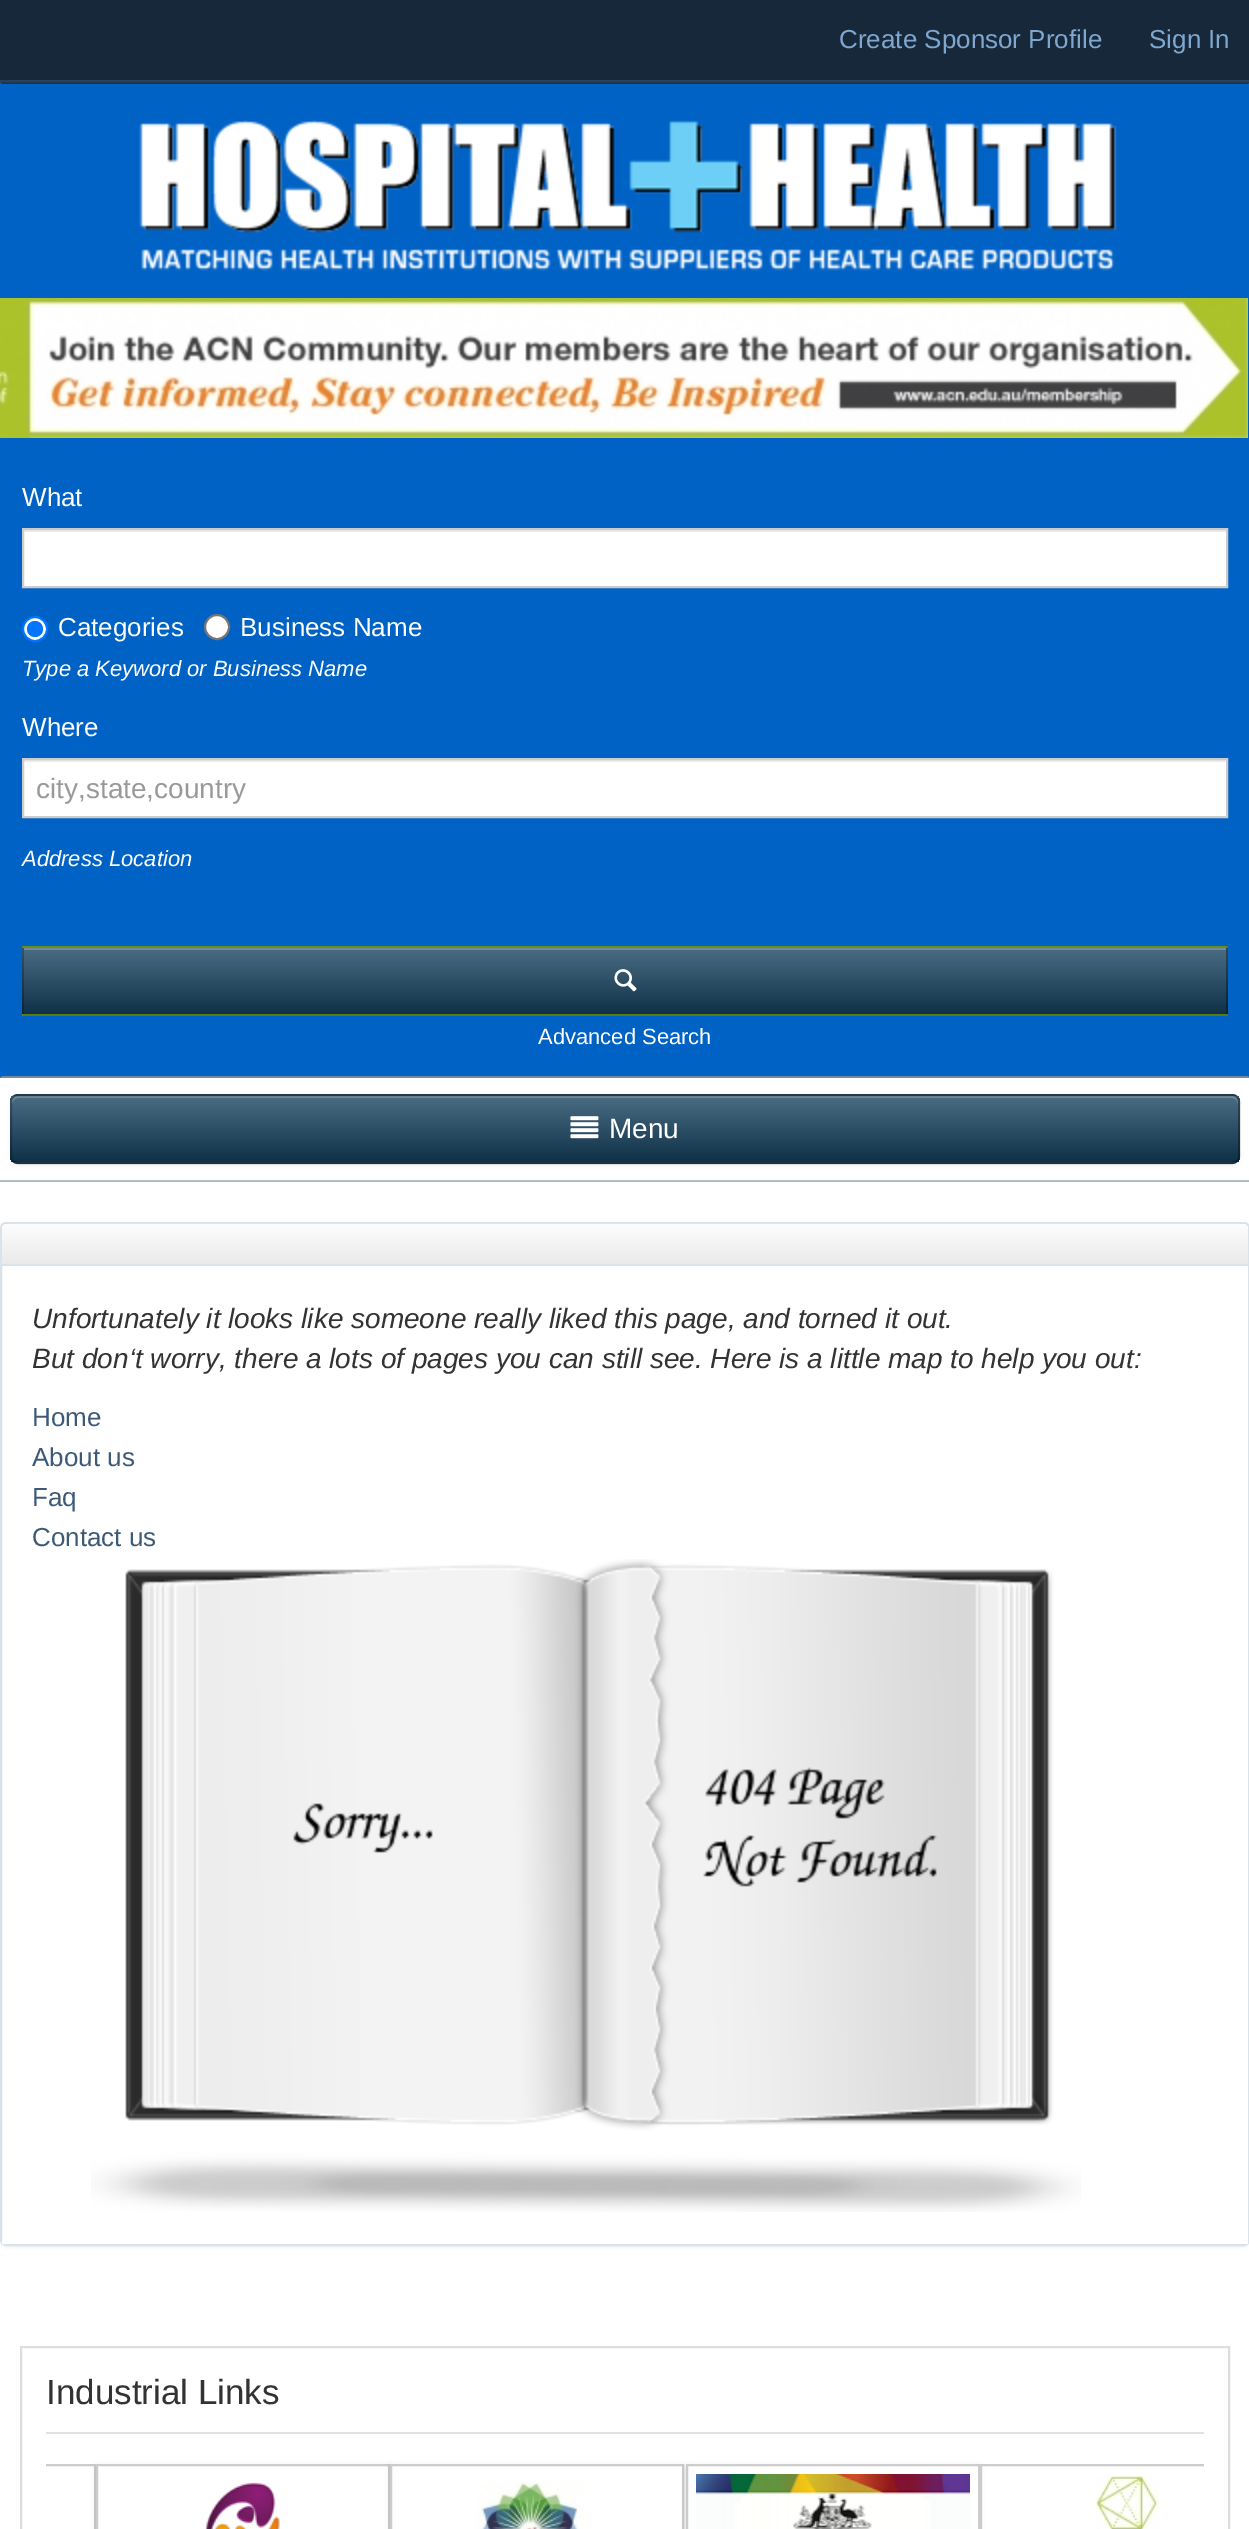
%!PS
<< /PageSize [1249 2529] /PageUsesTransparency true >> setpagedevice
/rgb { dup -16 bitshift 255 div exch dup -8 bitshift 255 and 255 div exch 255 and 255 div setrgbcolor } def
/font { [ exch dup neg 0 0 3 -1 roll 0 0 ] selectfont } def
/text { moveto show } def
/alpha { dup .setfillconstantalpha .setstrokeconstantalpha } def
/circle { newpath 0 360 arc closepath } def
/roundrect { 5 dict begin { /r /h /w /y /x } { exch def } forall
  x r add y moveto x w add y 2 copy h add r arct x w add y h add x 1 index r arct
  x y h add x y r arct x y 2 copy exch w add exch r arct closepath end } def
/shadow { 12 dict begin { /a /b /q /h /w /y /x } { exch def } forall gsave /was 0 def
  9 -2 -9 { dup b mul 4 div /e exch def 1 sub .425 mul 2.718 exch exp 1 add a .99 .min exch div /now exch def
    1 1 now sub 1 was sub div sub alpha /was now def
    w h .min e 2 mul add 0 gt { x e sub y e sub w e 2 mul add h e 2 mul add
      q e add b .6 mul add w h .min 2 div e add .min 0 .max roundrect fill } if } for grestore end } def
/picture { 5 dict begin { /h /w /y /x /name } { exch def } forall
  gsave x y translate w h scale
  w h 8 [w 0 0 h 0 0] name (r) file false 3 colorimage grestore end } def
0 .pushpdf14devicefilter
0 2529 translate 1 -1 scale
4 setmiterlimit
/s1 { /LiberationSans-Regular 26 font 16#80A7CF rgb } def
/s2 { /LiberationSans-Regular 26 font 16#FFFFFF rgb } def
/s3 { /LiberationSans-Italic 22 font 16#FFFFFF rgb } def
/s4 { /LiberationSans-Regular 28 font 16#999999 rgb } def
/s5 { /LiberationSans-Regular 22 font 16#FFFFFF rgb } def
/s6 { /LiberationSans-Regular 28 font 16#FFFFFF rgb } def
/s7 { /LiberationSans-Italic 28 font 16#333333 rgb } def
/s8 { /LiberationSans-Regular 26 font 16#3C5A78 rgb } def
/s9 { /LiberationSans-Regular 35 font 16#333333 rgb } def
16#FFFFFF rgb
0 0 1249 2529 rectfill
16#16283A rgb
0 0 1249 80 rectfill
16#2B4059 rgb
0 80 1249 2 rectfill
s1
(Create Sponsor Profile) 839 48 text
(Sign In) 1149 48 text
16#0062C5 rgb
0 82 1249 996 rectfill
16#1D354D rgb
0 82 moveto 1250 82 lineto 1248 84 lineto 2 84 lineto closepath fill
16#75899D rgb
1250 1078 moveto 0 1078 lineto 2 1076 lineto 1248 1076 lineto closepath fill
(pic1.raw) 139 120 978 151 picture
(pic2.raw) 0 298 1248 140 picture
s2
(What) 22 506 text
24 532 1202 54 rectfill
16#ECECEC rgb
24 530 1202 2 rectfill
16#CCCCCC rgb
2 setlinewidth
23 529 1204 58 rectstroke
16#FFFFFF rgb
35 629 12 circle gsave fill grestore
16#0075FF rgb
stroke
35 629 8 circle fill
s2
(Categories) 58 636 text
217 627 12 circle gsave fill grestore
16#767676 rgb
stroke
s2
(Business Name) 240 636 text
s3
(Type a Keyword or Business Name) 22 676 text
s2
(Where) 22 736 text
24 762 1202 54 rectfill
16#ECECEC rgb
24 760 1202 2 rectfill
16#CCCCCC rgb
23 759 1204 58 rectstroke
s4
(city,state,country) 36 798 text
s3
(Address Location) 22 866 text
16#8BBD1E rgb
22 946 1206 70 rectfill
gsave 22 948 moveto 1228 948 lineto 1228 1014 lineto 22 1014 lineto closepath clip newpath
<< /ShadingType 2 /ColorSpace /DeviceRGB /Coords [625 948 625 1014] /Extend [true true] /Function << /FunctionType 2 /Domain [0 1] /C0 [0.29 0.427 0.518] /C1 [0.055 0.192 0.282] /N 1 >> >> shfill grestore
16#6E8A9C rgb
24 948 1202 2 rectfill
16#688E17 rgb
22 946 moveto 1228 946 lineto 1226 948 lineto 24 948 lineto closepath fill
0.35 alpha
16#000000 rgb
1228 946 moveto 1228 1016 lineto 1226 1014 lineto 1226 948 lineto closepath fill
1228 1016 moveto 22 1016 lineto 24 1014 lineto 1226 1014 lineto closepath fill
0.25 alpha
22 1016 moveto 22 946 lineto 24 948 lineto 24 1014 lineto closepath fill
1 alpha
(pic3.raw) 614 969 23 23 picture
s5
(Advanced Search) 538 1044 text
16#B3BCC5 rgb
0 1180 1249 2 rectfill
16#000000 rgb
10 1096 1230 70 8 2 0.05 shadow
16#2C4F66 rgb
10 1094 1230 70 8 roundrect fill
gsave
10 1094 1230 70 8 roundrect clip newpath
gsave 10 1096 moveto 1240 1096 lineto 1240 1162 lineto 10 1162 lineto closepath clip newpath
<< /ShadingType 2 /ColorSpace /DeviceRGB /Coords [625 1096 625 1162] /Extend [true true] /Function << /FunctionType 2 /Domain [0 1] /C0 [0.29 0.427 0.518] /C1 [0.055 0.192 0.282] /N 1 >> >> shfill grestore
grestore
0.2 alpha
16#FFFFFF rgb
18 1098 moveto 1232 1098 lineto 1235 1098 1238 1101 1238 1104 curveto 1238 1102 lineto 1238 1099 1235 1096 1232 1096 curveto 18 1096 lineto 15 1096 12 1099 12 1102 curveto 12 1104 lineto 12 1101 15 1098 18 1098 curveto closepath fill
0.35 alpha
16#000000 rgb
1237 1097 moveto 1238.5 1098.5 1239 1100 1239 1102 curveto 1239 1156 lineto 1239 1158 1238.5 1159.5 1237 1161 curveto 1235.5 1162.5 1234 1163 1232 1163 curveto 18 1163 lineto 16 1163 14.5 1162.5 13 1161 curveto stroke
0.25 alpha
13 1161 moveto 11.5 1159.5 11 1158 11 1156 curveto 11 1102 lineto 11 1100 11.5 1098.5 13 1097 curveto 14.5 1095.5 16 1095 18 1095 curveto 1232 1095 lineto 1234 1095 1235.5 1095.5 1237 1097 curveto stroke
1 alpha
(pic4.raw) 570 1116 29 23 picture
s6
(Menu) 609 1138 text
16#DAE3E9 rgb
4 1230 1242 1016 2 2 1 shadow
16#FFFFFF rgb
1 1223 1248 1022 5 roundrect gsave fill grestore
16#DAE3E9 rgb
stroke
gsave 8 1224 moveto 1242 1224 lineto 1245.5 1224 1248 1226.5 1248 1230 curveto 1248 1264 lineto 2 1264 lineto 2 1230 lineto 2 1226.5 4.5 1224 8 1224 curveto closepath clip newpath
<< /ShadingType 2 /ColorSpace /DeviceRGB /Coords [625 1224 625 1264] /Extend [true true] /Function << /FunctionType 2 /Domain [0 1] /C0 [0.992 0.992 0.992] /C1 [0.918 0.918 0.918] /N 1 >> >> shfill grestore
2 1264 1246 2 rectfill
16#FFFFFF rgb
2 2241 1246 3 rectfill
s7
(Unfortunately it looks like someone really liked this page, and torned it out.) 32 1328 text
(But don‘t worry, there a lots of pages you can still see. Here is a little map to help you out:) 32 1368 text
s8
(Home) 32 1426 text
(About us) 32 1466 text
(Faq) 32 1506 text
(Contact us) 32 1546 text
(pic5.raw) 91 1559 990 653 picture
16#DCDFE1 rgb
21 2347 1208 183 rectstroke
16#E1E1E1 rgb
46 2432 1158 2 rectfill
s9
(Industrial Links) 46 2404 text
gsave
46 2464 1158 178 rectclip
16#CCCCCC rgb
-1 2465 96 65 rectstroke
grestore
16#000000 rgb
96 2466 294 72 0 3 0.1 shadow
16#FFFFFF rgb
97 2465 moveto 389 2465 lineto 389 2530 lineto 97 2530 lineto closepath gsave fill grestore
16#CCCCCC rgb
stroke
(pic6.raw) 205 2482 75 47 picture
16#000000 rgb
390 2466 294 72 0 3 0.1 shadow
16#FFFFFF rgb
391 2465 moveto 683 2465 lineto 683 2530 lineto 391 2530 lineto closepath gsave fill grestore
16#CCCCCC rgb
stroke
(pic7.raw) 475 2481 110 48 picture
16#000000 rgb
686 2466 294 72 0 3 0.1 shadow
16#FFFFFF rgb
687 2465 moveto 979 2465 lineto 979 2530 lineto 687 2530 lineto closepath gsave fill grestore
16#CCCCCC rgb
stroke
(pic8.raw) 696 2474 274 55 picture
16#FFFFFF rgb
982 2466 2 63 rectfill
gsave
46 2464 1158 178 rectclip
16#CCCCCC rgb
981 2465 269 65 rectstroke
grestore
(pic9.raw) 1095 2475 64 54 picture
.poppdf14devicefilter showpage
